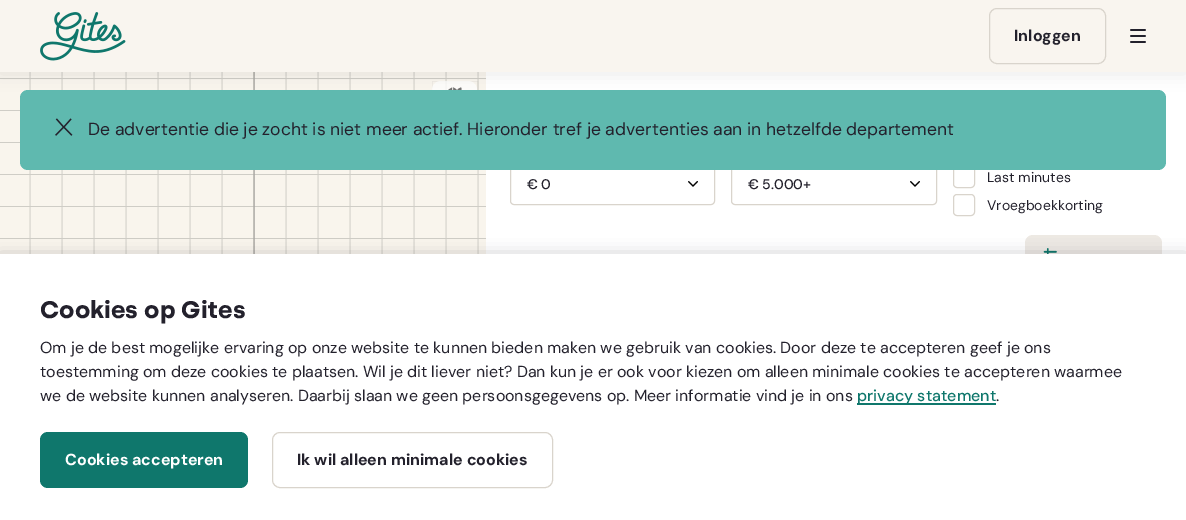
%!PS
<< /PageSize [1186 520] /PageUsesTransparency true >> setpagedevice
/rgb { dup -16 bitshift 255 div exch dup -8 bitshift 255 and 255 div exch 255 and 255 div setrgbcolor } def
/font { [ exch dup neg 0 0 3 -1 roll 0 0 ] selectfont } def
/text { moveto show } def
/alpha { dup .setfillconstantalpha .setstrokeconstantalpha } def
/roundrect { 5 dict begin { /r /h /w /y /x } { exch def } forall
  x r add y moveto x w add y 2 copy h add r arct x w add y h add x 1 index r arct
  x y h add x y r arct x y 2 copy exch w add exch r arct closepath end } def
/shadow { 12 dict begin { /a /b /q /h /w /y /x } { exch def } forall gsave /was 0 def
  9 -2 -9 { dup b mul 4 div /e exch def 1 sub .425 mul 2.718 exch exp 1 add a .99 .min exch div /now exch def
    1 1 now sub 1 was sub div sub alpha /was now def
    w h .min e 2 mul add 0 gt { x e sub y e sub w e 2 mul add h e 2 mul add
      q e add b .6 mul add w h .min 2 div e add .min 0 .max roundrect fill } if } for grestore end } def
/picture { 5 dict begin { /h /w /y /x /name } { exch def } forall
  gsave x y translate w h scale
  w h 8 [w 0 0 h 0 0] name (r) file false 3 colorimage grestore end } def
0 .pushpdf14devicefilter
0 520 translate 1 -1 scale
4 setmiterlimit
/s1 { /DMSans-Bold 16 font 16#23212C rgb } def
/s2 { /DMSans-Regular 17.55 font 16#23212C rgb } def
/s3 { /DMSans-Medium 14 font 16#23212C rgb } def
/s4 { /DMSans-Regular 14 font 16#23212C rgb } def
/s5 { /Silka-Bold 24 font 16#23212C rgb } def
/s6 { /DMSans-Regular 16 font 16#23212C rgb } def
/s7 { /DMSans-Medium 16 font 16#0F776C rgb } def
/s8 { /DMSans-Bold 16 font 16#FFFFFF rgb } def
16#FFFFFF rgb
0 0 1186 520 rectfill
(pic4.raw) 0 72 486 182 picture
0.05 alpha
16#000000 rgb
0.5 setlinewidth
432.25 81.25 45.5 24.5 rectstroke
0.75 alpha
16#FFFFFF rgb
432 81 45 24 9 roundrect fill
1 alpha
(pic5.raw) 448 87 14 3 picture
16#23212C rgb
0 2 1186 72 0 8 0.1 shadow
16#F9F5EF rgb
0 0 1186 72 rectfill
(pic1.raw) 40 12 86 49 picture
16#D9D4CC rgb
1 setlinewidth
989.5 8.5 116 55 7.5 roundrect stroke
s1
(Inloggen) 1014 41 text
(pic2.raw) 1130 29 16 14 picture
16#D9D4CC rgb
510.5 163.5 204 41 3.5 roundrect stroke
731.5 163.5 205 41 3.5 roundrect stroke
953.5 166.5 21 21 3.5 roundrect stroke
16#5FB9AF rgb
20 90 1146 80 8 roundrect fill
(pic3.raw) 55 118 18 18 picture
s2
(De advertentie die je zocht is niet meer actief. Hieronder tref je advertenties aan in hetzelfde departement) 88 135 text
s3
(€ 0) 527 189 text
(pic6.raw) 688 181 10 6 picture
(€ 5.000+) 748 189 text
(pic6.raw) 910 181 10 6 picture
s4
(Last minutes) 987 182 text
16#D9D4CC rgb
953.5 194.5 21 21 3.5 roundrect stroke
s4
(Vroegboekkorting) 987 210 text
16#EDE9E3 rgb
1025 235 137 42 8 roundrect fill
(pic7.raw) 1043 248 14 6 picture
16#23212C rgb
0 256 1186 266 0 8 0.3 shadow
16#FFFFFF rgb
0 254 1186 266 rectfill
s5
(Cookies op Gites) 40 318 text
s6
(Om je de best mogelijke ervaring op onze website te kunnen bieden maken we gebruik van cookies. Door deze te accepteren geef je ons) 40 353 text
(toestemming om deze cookies te plaatsen. Wil je dit liever niet? Dan kun je er ook voor kiezen om alleen minimale cookies te accepteren waarmee) 40 377 text
(we de website kunnen analyseren. Daarbij slaan we geen persoonsgegevens op. Meer informatie vind je in ons) 40 401 text
16#0F776C rgb
857 403 139 2 rectfill
s7
(privacy statement) 857 401 text
s6
(.) 996 401 text
16#0F776C rgb
40 432 208 56 8 roundrect fill
s8
(Cookies accepteren) 65 465 text
16#D9D4CC rgb
272.5 432.5 280 55 7.5 roundrect stroke
s1
(Ik wil alleen minimale cookies) 297 465 text
.poppdf14devicefilter showpage
